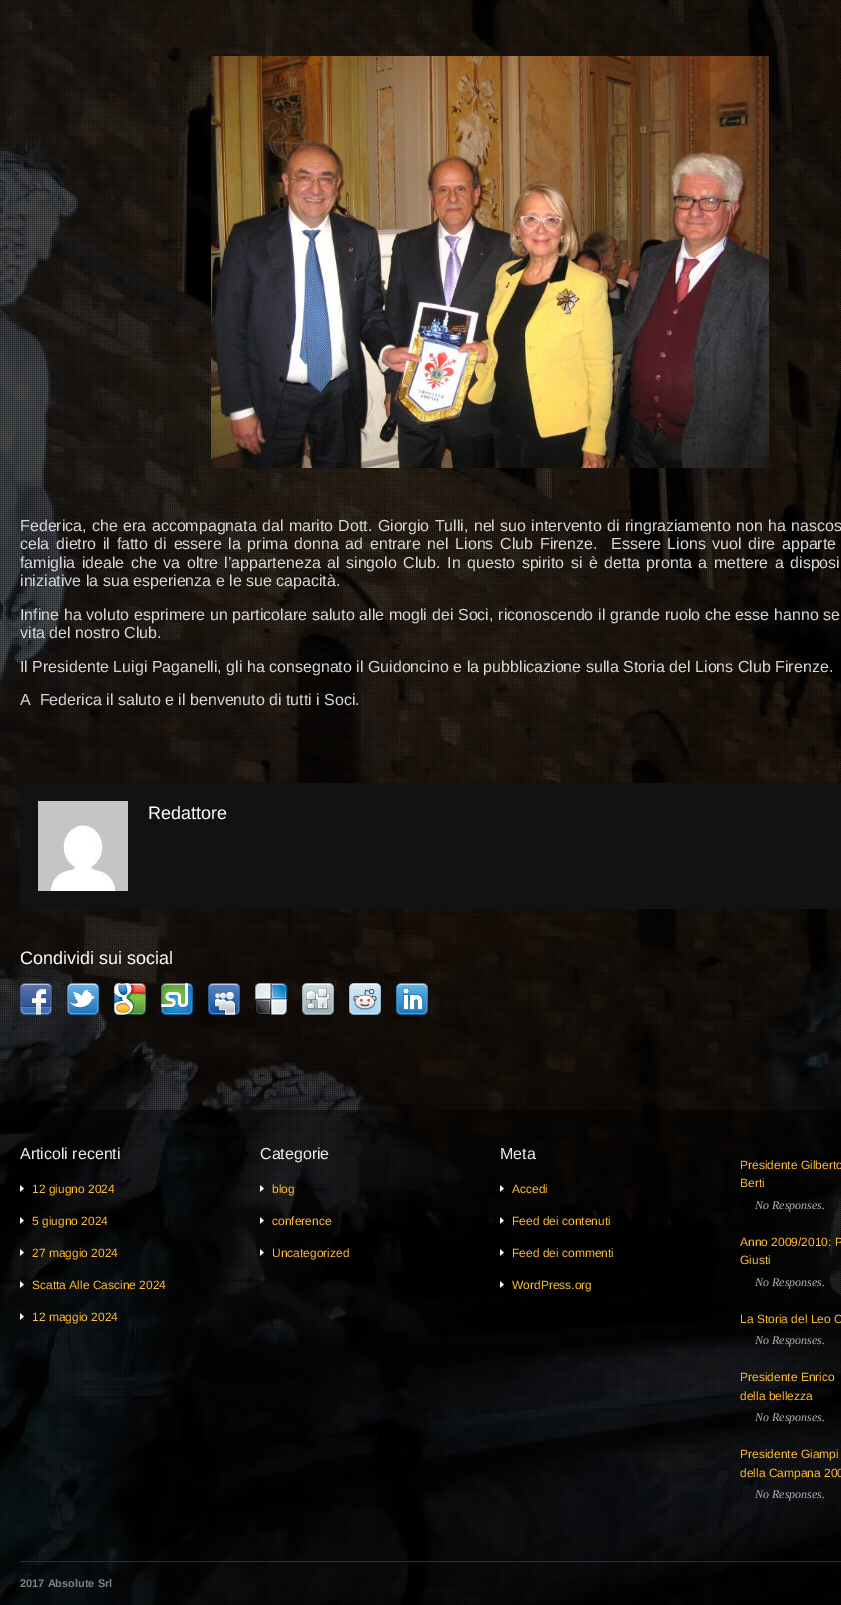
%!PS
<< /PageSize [841 1605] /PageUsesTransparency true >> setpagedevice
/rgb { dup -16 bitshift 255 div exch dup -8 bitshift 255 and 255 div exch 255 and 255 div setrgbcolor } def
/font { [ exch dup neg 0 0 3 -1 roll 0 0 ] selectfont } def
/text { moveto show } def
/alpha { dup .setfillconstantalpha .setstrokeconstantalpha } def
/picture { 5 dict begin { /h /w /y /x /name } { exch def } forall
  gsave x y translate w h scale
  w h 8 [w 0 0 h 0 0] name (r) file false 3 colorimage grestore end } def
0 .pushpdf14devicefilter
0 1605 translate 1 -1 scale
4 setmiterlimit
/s1 { /LiberationSans-Regular 16 font 16#D6D6D6 rgb } def
/s2 { /LiberationSans-Regular 18 font 16#FFFFFF rgb } def
/s3 { /LiberationSans-Regular 16 font 16#ECECEC rgb } def
/s4 { /LiberationSans-Regular 12 font 16#FFBC2D rgb } def
/s5 { /LiberationSerif-Italic 12 font 16#B1B1B1 rgb } def
/s6 { /LiberationSans-Bold 11 font 16#808080 rgb } def
16#FFFFFF rgb
0 0 841 1605 rectfill
(pic1.raw) 0 0 841 1605 picture
(pic2.raw) 0 0 841 1605 picture
(pic3.raw) 211 56 558 412 picture
/LiberationSans-Regular 16 font
16#D6D6D6 rgb
20 531 moveto 0.9 0 32 (Federica, che era accompagnata dal marito Dott. Giorgio Tulli, nel suo intervento di ringraziamento non ha nascos) widthshow
20 549 moveto 2.25 0 32 (cela dietro il fatto di essere la prima donna ad entrare nel Lions Club Firenze.  Essere Lions vuol dire apparte) widthshow
20 568 moveto 2.1 0 32 (famiglia ideale che va oltre l’apparteneza al singolo Club. In questo spirito si è detta pronta a mettere a disposi) widthshow
(iniziative la sua esperienza e le sue capacità.) 20 586 text
20 620 moveto 0.3 0 32 (Infine ha voluto esprimere un particolare saluto alle mogli dei Soci, riconoscendo il grande ruolo che esse hanno se) widthshow
(vita del nostro Club.) 20 638 text
(Il Presidente Luigi Paganelli, gli ha consegnato il Guidoncino e la pubblicazione sulla Storia del Lions Club Firenze.) 20 672 text
(A  Federica il saluto e il benvenuto di tutti i Soci.) 20 705 text
16#121212 rgb
20 783 821 126 rectfill
(pic4.raw) 38 801 90 90 picture
s2
(Redattore) 148 819 text
(Condividi sui social) 20 964 text
(pic5.raw) 20 983 32 32 picture
(pic6.raw) 67 983 32 32 picture
(pic7.raw) 114 983 32 32 picture
(pic8.raw) 161 983 32 32 picture
(pic9.raw) 208 983 32 32 picture
(pic10.raw) 255 983 32 32 picture
(pic11.raw) 302 983 32 32 picture
(pic12.raw) 349 983 32 32 picture
(pic13.raw) 396 983 32 32 picture
0.45 alpha
16#000000 rgb
0 1110 841 495 rectfill
1 alpha
s3
(Articoli recenti) 20 1159 text
(pic14.raw) 20 1185 4 7 picture
s4
(12 giugno 2024) 32 1193 text
(pic15.raw) 20 1217 4 7 picture
(5 giugno 2024) 32 1225 text
(pic16.raw) 20 1249 4 7 picture
(27 maggio 2024) 32 1257 text
(pic17.raw) 20 1281 4 7 picture
(Scatta Alle Cascine 2024) 32 1289 text
(pic18.raw) 20 1313 4 7 picture
(12 maggio 2024) 32 1321 text
s3
(Categorie) 260 1159 text
(pic19.raw) 260 1185 4 7 picture
s4
(blog) 272 1193 text
(pic20.raw) 260 1217 4 7 picture
(conference) 272 1225 text
(pic21.raw) 260 1249 4 7 picture
(Uncategorized) 272 1257 text
s3
(Meta) 500 1159 text
(pic22.raw) 500 1185 4 7 picture
s4
(Accedi) 512 1193 text
(pic23.raw) 500 1217 4 7 picture
(Feed dei contenuti) 512 1225 text
(pic14.raw) 500 1249 4 7 picture
(Feed dei commenti) 512 1257 text
(pic14.raw) 500 1281 4 7 picture
(WordPress.org) 512 1289 text
(Presidente Gilberto) 740 1169 text
(Berti) 740 1187 text
s5
(No Responses.) 755 1209 text
s4
(Anno 2009/2010: P) 740 1246 text
(Giusti) 740 1264 text
s5
(No Responses.) 755 1286 text
s4
(La Storia del Leo C) 740 1323 text
s5
(No Responses.) 755 1344 text
s4
(Presidente Enrico) 740 1381 text
(della bellezza) 740 1400 text
s5
(No Responses.) 755 1421 text
s4
(Presidente Giampi) 740 1458 text
(della Campana 200) 740 1477 text
s5
(No Responses.) 755 1498 text
16#303030 rgb
20 1561 821 1 rectfill
s6
(2017 Absolute Srl) 20 1587 text
.poppdf14devicefilter showpage
